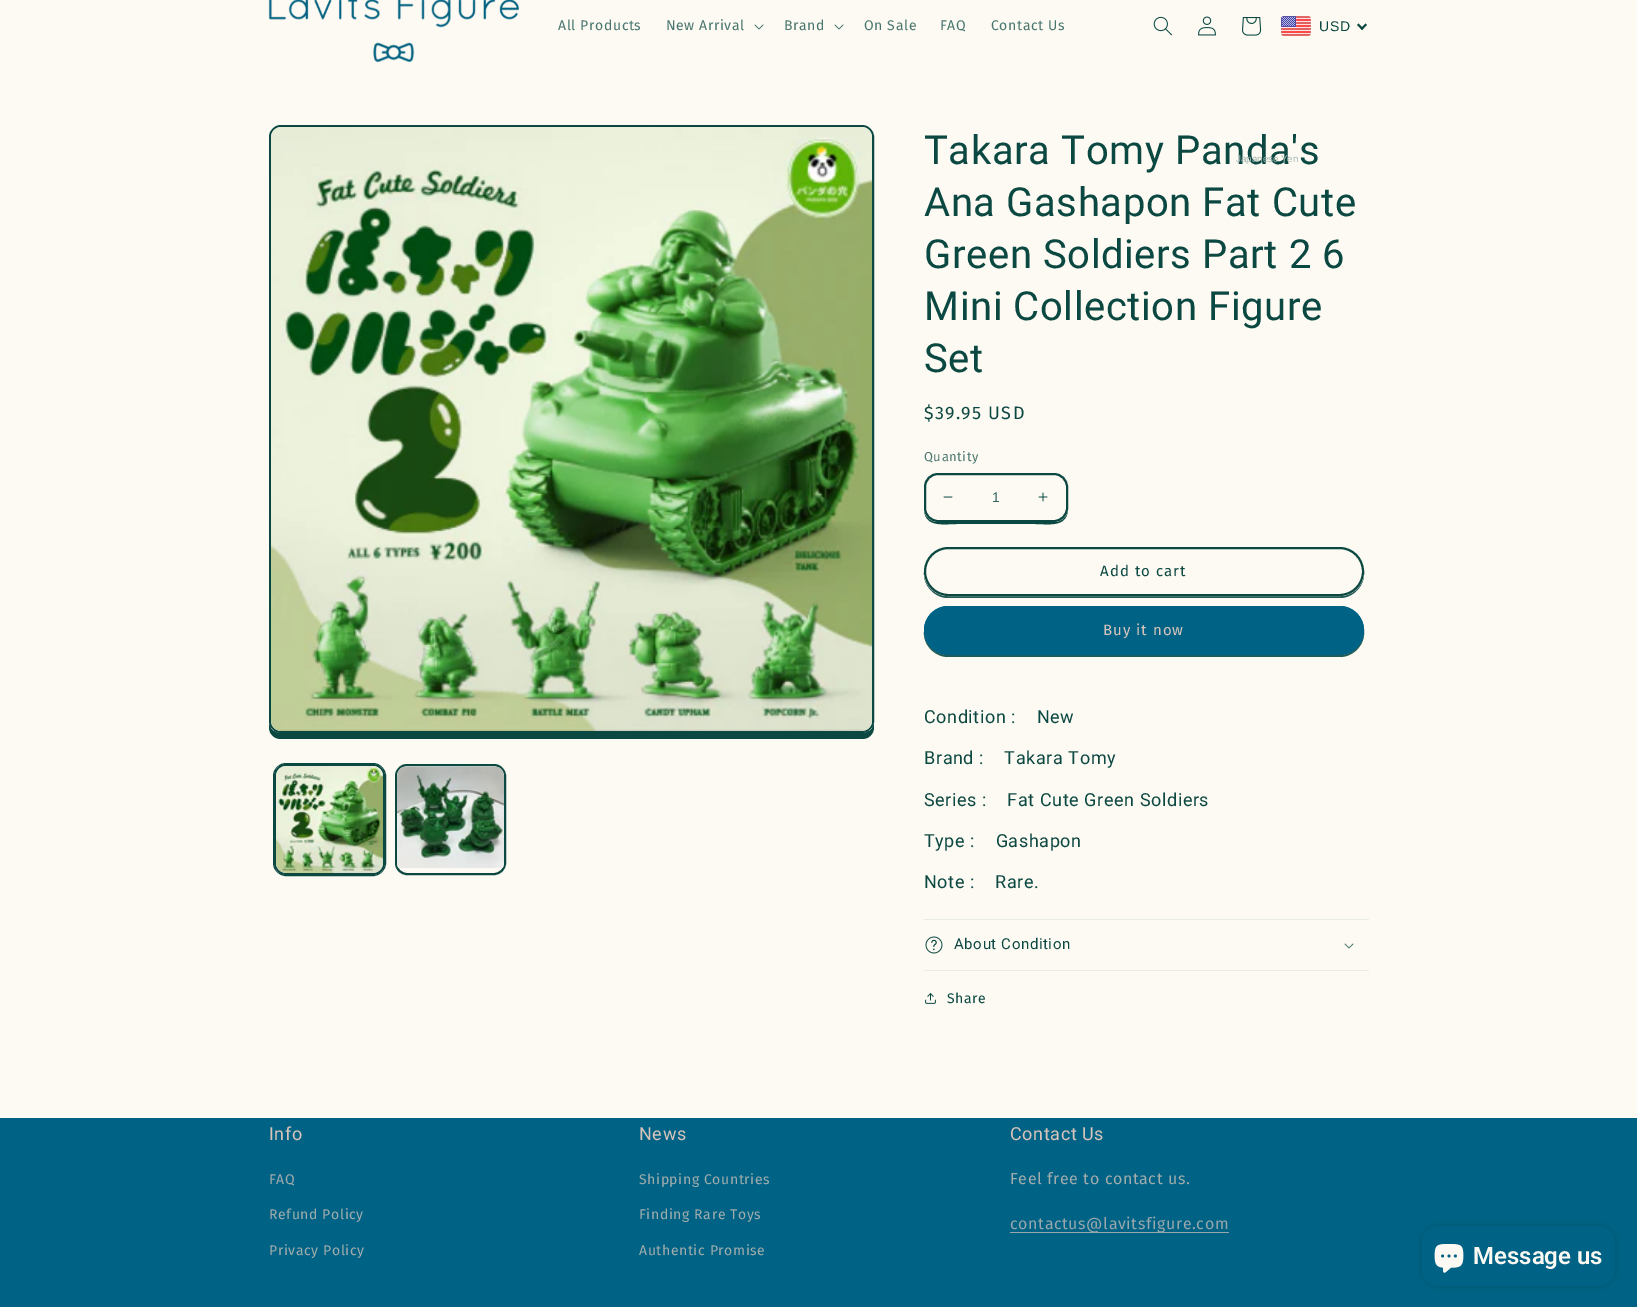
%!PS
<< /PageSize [1637 1307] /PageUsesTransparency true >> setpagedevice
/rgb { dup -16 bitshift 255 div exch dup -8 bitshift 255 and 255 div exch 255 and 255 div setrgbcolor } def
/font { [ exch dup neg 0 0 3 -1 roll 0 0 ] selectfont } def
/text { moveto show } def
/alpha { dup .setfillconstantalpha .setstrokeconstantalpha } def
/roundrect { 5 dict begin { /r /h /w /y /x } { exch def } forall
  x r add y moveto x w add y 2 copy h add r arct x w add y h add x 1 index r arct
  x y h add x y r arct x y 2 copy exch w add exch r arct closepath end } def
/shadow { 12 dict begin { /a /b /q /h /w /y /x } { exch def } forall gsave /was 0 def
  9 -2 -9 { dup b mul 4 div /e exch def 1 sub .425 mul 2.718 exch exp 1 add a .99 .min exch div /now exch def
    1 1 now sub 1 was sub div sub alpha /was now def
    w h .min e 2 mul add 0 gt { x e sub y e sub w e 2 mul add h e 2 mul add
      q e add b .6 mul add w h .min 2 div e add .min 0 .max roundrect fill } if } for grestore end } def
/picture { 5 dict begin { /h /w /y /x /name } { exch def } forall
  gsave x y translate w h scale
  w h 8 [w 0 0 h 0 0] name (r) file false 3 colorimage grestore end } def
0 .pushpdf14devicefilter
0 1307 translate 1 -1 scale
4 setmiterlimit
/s1 { /LiberationSans-Regular 9.75 font 16#A2B7B0 rgb } def
/s2 { /LiberationSans-Regular 14 font 16#30635C rgb } def
/s3 { /Roboto-SemiBold 24 font 16#FCFAF2 rgb } def
16#FCFAF2 rgb
0 0 1637 1307 rectfill
(pic1.raw) 268 0 251 62 picture
/FiraSans-Regular 14 font
16#48756E rgb
558 30 moveto 0.6 0 (All Products) ashow
666 30 moveto 0.6 0 (New Arrival) ashow
(pic2.raw) 754 24 10 6 picture
784 30 moveto 0.6 0 (Brand) ashow
(pic2.raw) 834 24 10 6 picture
864 30 moveto 0.6 0 (On Sale) ashow
940 30 moveto 0.6 0 (FAQ) ashow
991 30 moveto 0.6 0 (Contact Us) ashow
(pic3.raw) 1153 16 19 20 picture
(pic4.raw) 1198 16 18 20 picture
(pic5.raw) 1242 17 20 19 picture
(pic6.raw) 1281 16 30 20 picture
/LiberationSans-Regular 14 font
16#0C4842 rgb
1319 31 moveto 0.6 0 (USD) ashow
1365.5 23.5 moveto 1367 25 lineto 1362 30 lineto 1360.5 28.5 lineto closepath fill
1358.5 23.5 moveto 1363.5 28.5 lineto 1362 30 lineto 1357 25 lineto closepath fill
/Roboto-Regular 40 font
924 164 moveto 0.6 0 (Takara Tomy Panda's) ashow
s1
(Japanese Yen) 1236 162 text
16#0C4842 rgb
269 721 moveto 269 727 lineto 269 734 274 739 281 739 curveto 862 739 lineto 869 739 874 734 874 727 curveto 874 721 lineto 874 728 869 733 862 733 curveto 281 733 lineto 274 733 269 728 269 721 curveto closepath fill
16#FCFAF2 rgb
270 126 603 606 11 roundrect gsave fill grestore
16#0C4842 rgb
2 setlinewidth
stroke
(pic7.raw) 271 127 601 604 picture
1 setlinewidth
273.5 763.5 112 112 12.5 roundrect stroke
2 setlinewidth
275 765 109 109 11 roundrect stroke
(pic8.raw) 276 766 107 107 picture
396 765 109 109 11 roundrect stroke
(pic9.raw) 397 767 107 101 picture
/Roboto-Regular 40 font
924 216 moveto 0.6 0 (Ana Gashapon Fat Cute) ashow
924 268 moveto 0.6 0 (Green Soldiers Part 2 6) ashow
924 320 moveto 0.6 0 (Mini Collection Figure) ashow
924 372 moveto 0.6 0 (Set) ashow
/FiraSans-Regular 18 font
924 419 moveto 1.25 0 ($39.95 USD) ashow
/FiraSans-Regular 13 font
16#48756E rgb
924 461 moveto 0.5 0 (Quantity) ashow
16#0C4842 rgb
924 508 moveto 924 528 943 524 957 524 curveto 1035 524 lineto 1049 524 1068 528 1068 508 curveto 1068 516 1062 522 1054 522 curveto 938 522 lineto 930 522 924 516 924 508 curveto closepath fill
16#FCFAF2 rgb
924 473 144 49 14 roundrect fill
(pic10.raw) 943 496 10 2 picture
(pic11.raw) 1038 492 10 10 picture
16#0C4842 rgb
925 474 142 47 13 roundrect stroke
s2
(1) 992 502 text
16#245A54 rgb
924 572 moveto 923 586 935 598 948 598 curveto 1340 598 lineto 1353 598 1365 586 1364 572 curveto 1363 586 1353 596 1340 596 curveto 948 596 lineto 935 596 925 586 924 572 curveto closepath fill
16#FCFAF2 rgb
924 547 440 49 24.5 roundrect fill
925 548 438 47 23.5 roundrect stroke
16#0C4842 rgb
925 548 438 47 23.5 roundrect stroke
/FiraSans-Regular 15 font
1100 576 moveto 1 0 (Add to cart) ashow
16#245A54 rgb
924 632 moveto 923 645 935 657 948 657 curveto 1340 657 lineto 1353 657 1365 645 1364 632 curveto 1363 645 1353 655 1340 655 curveto 948 655 lineto 935 655 925 645 924 632 curveto closepath fill
16#006284 rgb
924 606 440 49 24.5 roundrect fill
925 607 438 47 23.5 roundrect stroke
16#D7C4BB rgb
1103 635 moveto 1 0 (Buy it now) ashow
/Roboto-Regular 18 font
16#0C4842 rgb
924 723 moveto 0.6 0 (Condition :    New) ashow
924 764 moveto 0.6 0 (Brand :    Takara Tomy) ashow
924 806 moveto 0.6 0 (Series :    Fat Cute Green Soldiers) ashow
924 847 moveto 0.6 0 (Type :    Gashapon) ashow
924 888 moveto 0.6 0 (Note :    Rare.) ashow
16#E9ECE4 rgb
924 919 445 1 rectfill
924 970 445 1 rectfill
(pic12.raw) 925 936 18 18 picture
/Roboto-Regular 15 font
16#0C4842 rgb
954 949 moveto 0.6 0 (About Condition) ashow
(pic2.raw) 1344 943 10 6 picture
(pic13.raw) 925 993 11 11 picture
/FiraSans-Regular 14 font
947 1003 moveto 0.6 0 (Share) ashow
16#006284 rgb
0 1118 1637 189 rectfill
/Roboto-Regular 18 font
16#D7C4BB rgb
269 1140 moveto 0.6 0 (Info) ashow
/FiraSans-Regular 14 font
16#A1ACAD rgb
269 1184 moveto 0.6 0 (FAQ) ashow
269 1219 moveto 0.6 0 (Refund Policy) ashow
269 1255 moveto 0.6 0 (Privacy Policy) ashow
/Roboto-Regular 18 font
16#D7C4BB rgb
639 1140 moveto 0.6 0 (News) ashow
/FiraSans-Regular 14 font
16#A1ACAD rgb
639 1184 moveto 0.6 0 (Shipping Countries) ashow
639 1219 moveto 0.6 0 (Finding Rare Toys) ashow
639 1255 moveto 0.6 0 (Authentic Promise) ashow
/Roboto-Regular 18 font
16#D7C4BB rgb
1010 1140 moveto 0.6 0 (Contact Us) ashow
/FiraSans-Regular 16 font
16#A1ACAD rgb
1010 1184 moveto 0.6 0 (Feel free to contact us.) ashow
16#97A7AB rgb
1010 1232 219 1 rectfill
1010 1229 moveto 0.6 0 (contactus@lavitsfigure.com) ashow
16#000000 rgb
1422 1226 193 60 16 2.5 0.15 shadow
16#006284 rgb
1422 1226 193 60 16 roundrect fill
(pic14.raw) 1434 1244 30 29 picture
s3
(Message us) 1473 1264 text
.poppdf14devicefilter showpage
